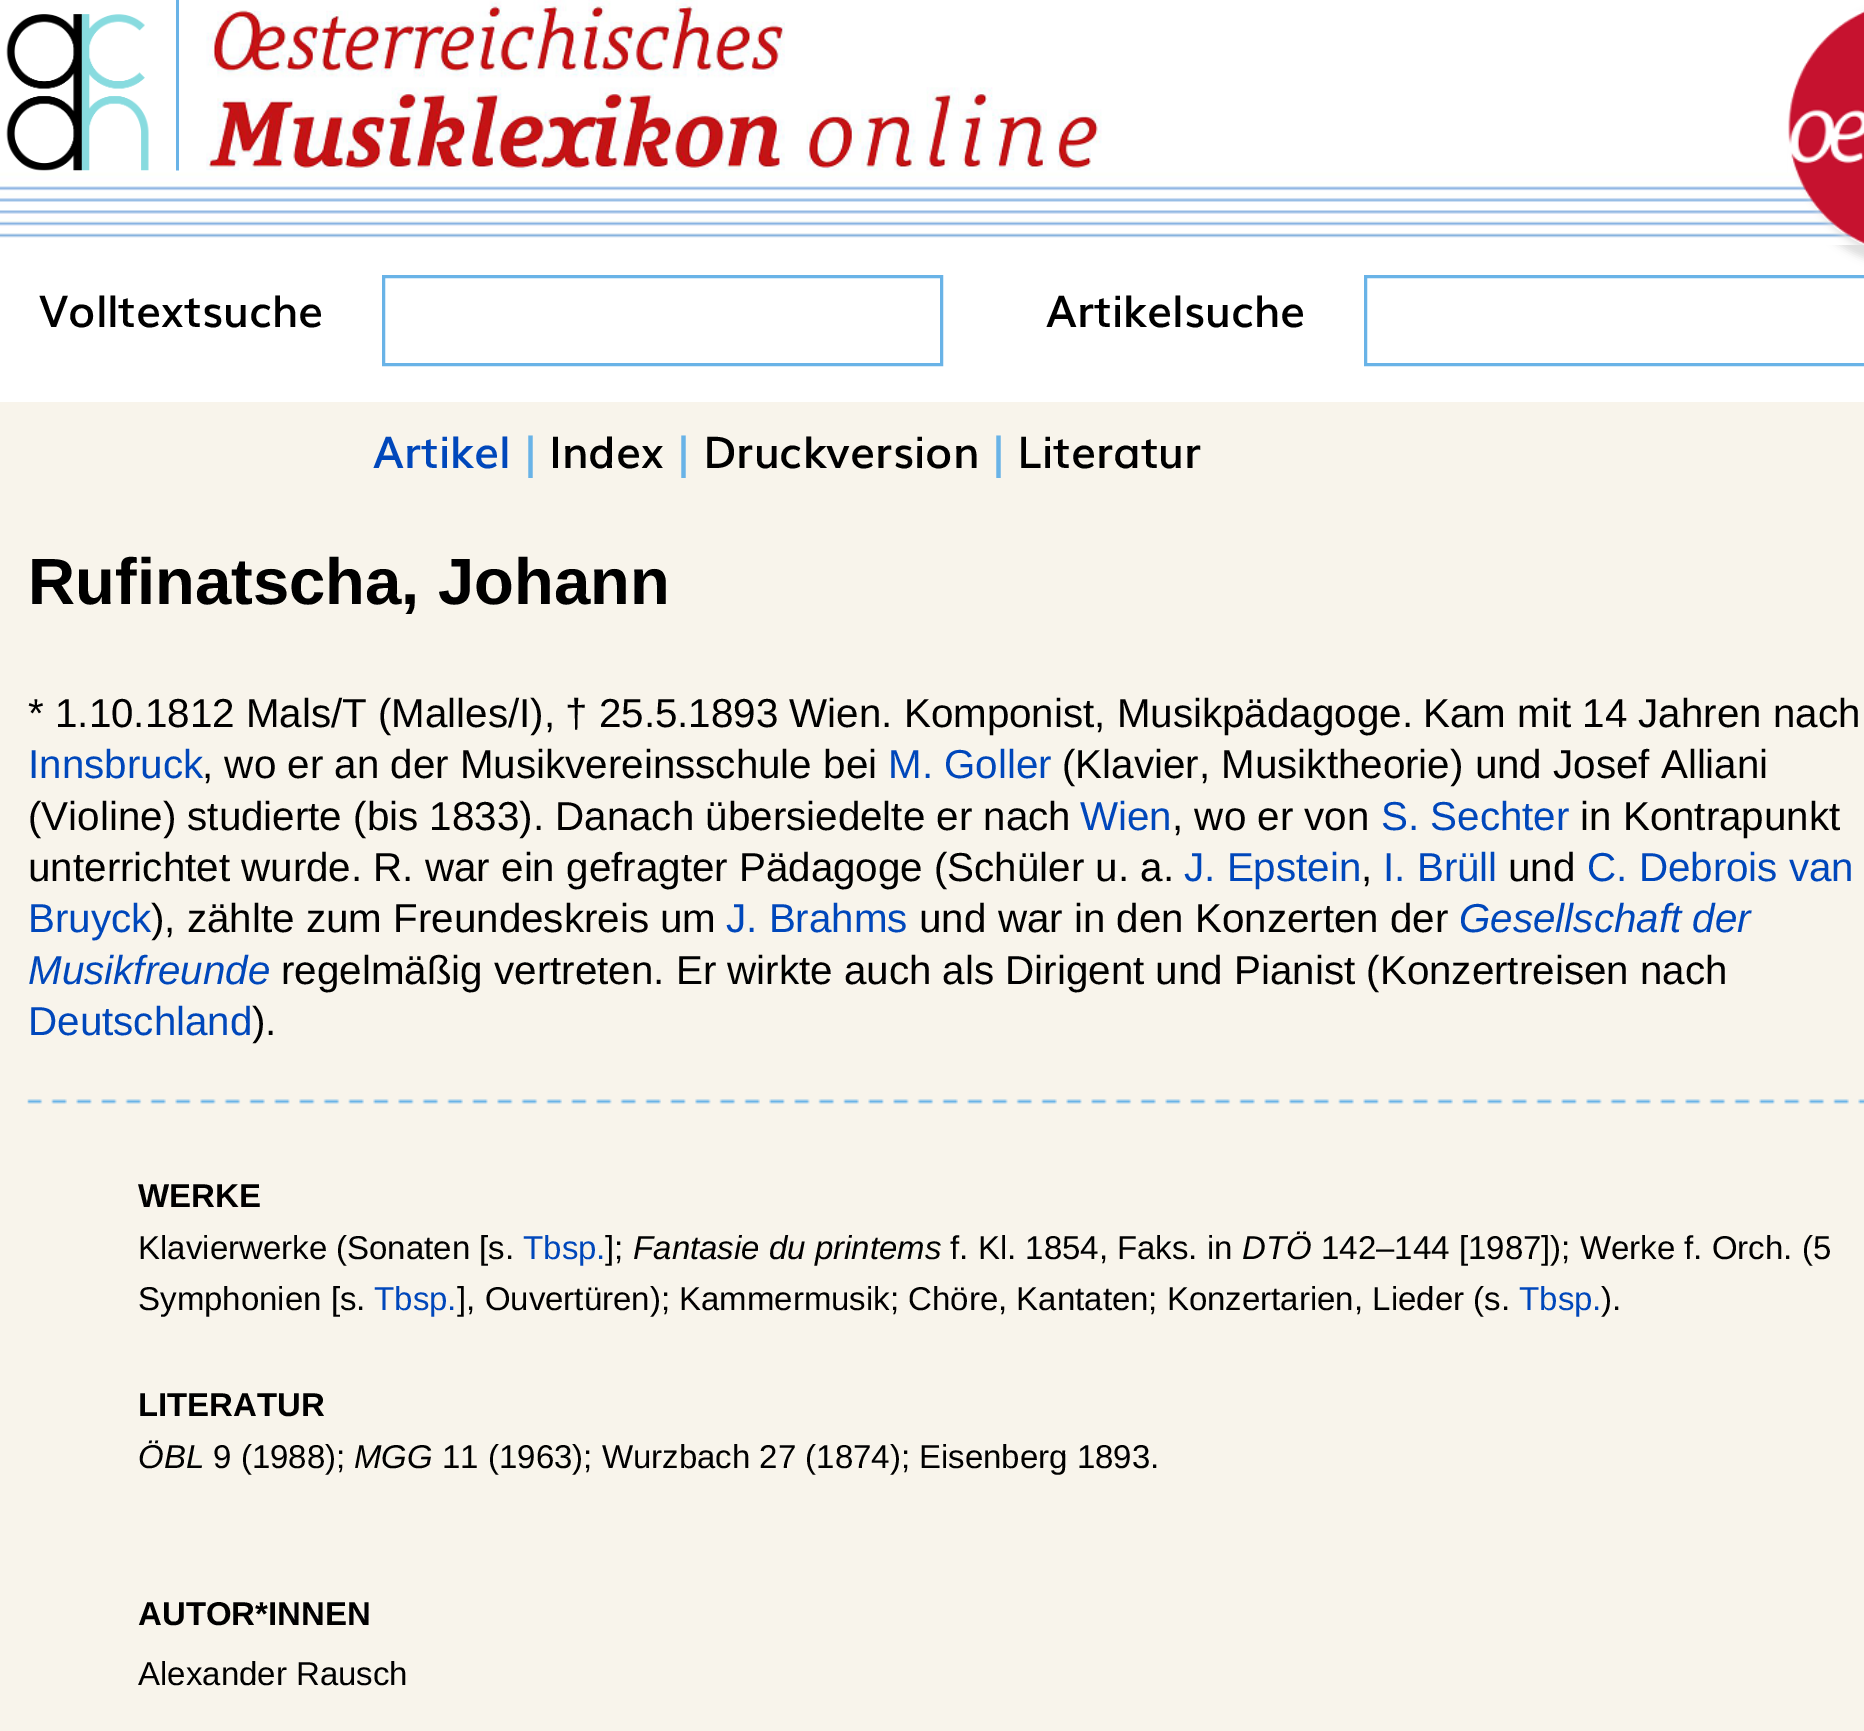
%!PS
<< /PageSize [1864 1731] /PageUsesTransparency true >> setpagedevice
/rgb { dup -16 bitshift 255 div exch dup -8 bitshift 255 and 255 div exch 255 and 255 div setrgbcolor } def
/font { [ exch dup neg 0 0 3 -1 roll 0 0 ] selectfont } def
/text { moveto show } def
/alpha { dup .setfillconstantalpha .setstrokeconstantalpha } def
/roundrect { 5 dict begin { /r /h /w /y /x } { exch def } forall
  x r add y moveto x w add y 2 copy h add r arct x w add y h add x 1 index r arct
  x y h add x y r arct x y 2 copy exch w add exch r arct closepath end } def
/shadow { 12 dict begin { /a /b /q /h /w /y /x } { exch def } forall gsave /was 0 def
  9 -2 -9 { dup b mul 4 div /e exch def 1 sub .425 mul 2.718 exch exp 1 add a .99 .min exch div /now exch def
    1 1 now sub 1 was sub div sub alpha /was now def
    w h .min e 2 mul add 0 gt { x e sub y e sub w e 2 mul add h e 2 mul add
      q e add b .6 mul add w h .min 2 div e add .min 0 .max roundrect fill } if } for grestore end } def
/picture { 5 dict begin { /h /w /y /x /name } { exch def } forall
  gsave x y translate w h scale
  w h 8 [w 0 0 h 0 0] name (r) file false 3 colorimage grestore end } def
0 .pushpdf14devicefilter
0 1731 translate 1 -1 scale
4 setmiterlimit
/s1 { /Muli-SemiBold 44 font 16#000000 rgb } def
/s2 { /Muli-SemiBold 44 font 16#0047BB rgb } def
/s3 { /Muli-SemiBold 44 font 16#69B3E7 rgb } def
/s4 { /LiberationSans-Bold 65.25 font 16#000000 rgb } def
/s5 { /LiberationSans-Regular 40.35 font 16#000000 rgb } def
/s6 { /LiberationSans-Regular 40.35 font 16#0047BB rgb } def
/s7 { /LiberationSans-Italic 40.35 font 16#0047BB rgb } def
/s8 { /LiberationSans-Bold 33 font 16#000000 rgb } def
/s9 { /LiberationSans-Regular 33 font 16#000000 rgb } def
/s10 { /LiberationSans-Regular 33 font 16#0047BB rgb } def
/s11 { /LiberationSans-Italic 33 font 16#000000 rgb } def
16#FFFFFF rgb
0 0 1864 1731 rectfill
(pic1.raw) 6 14 143 157 picture
16#69B3E7 rgb
176 0 3 171 rectfill
(pic2.raw) 206 0 896 171 picture
(pic4.raw) 0 170 1856 68 picture
3 setlinewidth
1365.5 276.5 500 88 rectstroke
gsave
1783 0 moveto 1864 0 lineto 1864 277 lineto 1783 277 lineto closepath 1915.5 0 moveto 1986 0 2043 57 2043 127.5 curveto 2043 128.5 lineto 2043 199 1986 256 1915.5 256 curveto 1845 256 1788 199 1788 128.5 curveto 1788 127.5 lineto 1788 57 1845 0 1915.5 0 curveto closepath eoclip newpath
16#DDDDDD rgb
1796 8 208 256 128 4 1 shadow
grestore
(pic3.raw) 1788 11 76 234 picture
s1
(Volltextsuche) 39 327 text
16#69B3E7 rgb
383.5 276.5 558 88 rectstroke
s1
(Artikelsuche) 1046 327 text
16#F8F4EB rgb
0 402 1864 1329 rectfill
s2
(Artikel) 373 468 text
s3
(|) 524 468 text
s1
(Index) 549 468 text
s3
(|) 677 468 text
s1
(Druckversion) 703 468 text
s3
(|) 992 468 text
s1
(Literatur) 1017 468 text
s4
(Rufinatscha, Johann) 28 604 text
s5
(* 1.10.1812 Mals/T \(Malles/I\),) 28 727 text
(† 25.5.1893 Wien. Komponist, Musikpädagoge.) 565 727 text
(Kam mit 14 Jahren nach) 1423 727 text
s6
(Innsbruck) 28 778 text
s5
(, wo er an der Musikvereinsschule bei) 202 778 text
s6
(M. Goller) 888 778 text
s5
(\(Klavier, Musiktheorie\) und Josef Alliani) 1062 778 text
(\(Violine\) studierte \(bis 1833\). Danach übersiedelte er nach) 28 830 text
s6
(Wien) 1080 830 text
s5
(, wo er von) 1172 830 text
s6
(S. Sechter) 1381 830 text
s5
(in Kontrapunkt) 1580 830 text
(unterrichtet wurde. R. war ein gefragter Pädagoge \(Schüler u. a.) 28 881 text
s6
(J. Epstein) 1184 881 text
s5
(,) 1361 881 text
s6
(I. Brüll) 1383 881 text
s5
(und) 1508 881 text
s6
(C. Debrois van) 1587 881 text
(Bruyck) 28 932 text
s5
(\), zählte zum Freundeskreis um) 151 932 text
s6
(J. Brahms) 726 932 text
s5
(und war in den Konzerten der) 919 932 text
s7
(Gesellschaft der) 1459 932 text
(Musikfreunde) 28 984 text
s5
(regelmäßig vertreten. Er wirkte auch als Dirigent und Pianist \(Konzertreisen nach) 281 984 text
s6
(Deutschland) 28 1035 text
s5
(\).) 252 1035 text
(pic5.raw) 27 1099 1837 5 picture
s8
(WERKE) 138 1207 text
s9
(Klavierwerke \(Sonaten [s.) 138 1259 text
s10
(Tbsp.) 523 1259 text
s9
(];) 605 1259 text
s11
(Fantasie du printems) 633 1259 text
s9
(f. Kl. 1854, Faks. in) 950 1259 text
s11
(DTÖ) 1242 1259 text
s9
(142–144 [1987]\); Werke f. Orch. \(5) 1321 1259 text
(Symphonien [s.) 138 1310 text
s10
(Tbsp.) 374 1310 text
s9
(], Ouvertüren\); Kammermusik; Chöre, Kantaten; Konzertarien, Lieder \(s.) 457 1310 text
s10
(Tbsp.) 1519 1310 text
s9
(\).) 1601 1310 text
s8
(LITERATUR) 138 1416 text
s11
(ÖBL) 138 1468 text
s9
(9 \(1988\);) 213 1468 text
s11
(MGG) 354 1468 text
s9
(11 \(1963\); Wurzbach 27 \(1874\); Eisenberg 1893.) 442 1468 text
s8
(AUTOR*INNEN) 138 1625 text
s9
(Alexander Rausch) 138 1685 text
.poppdf14devicefilter showpage
